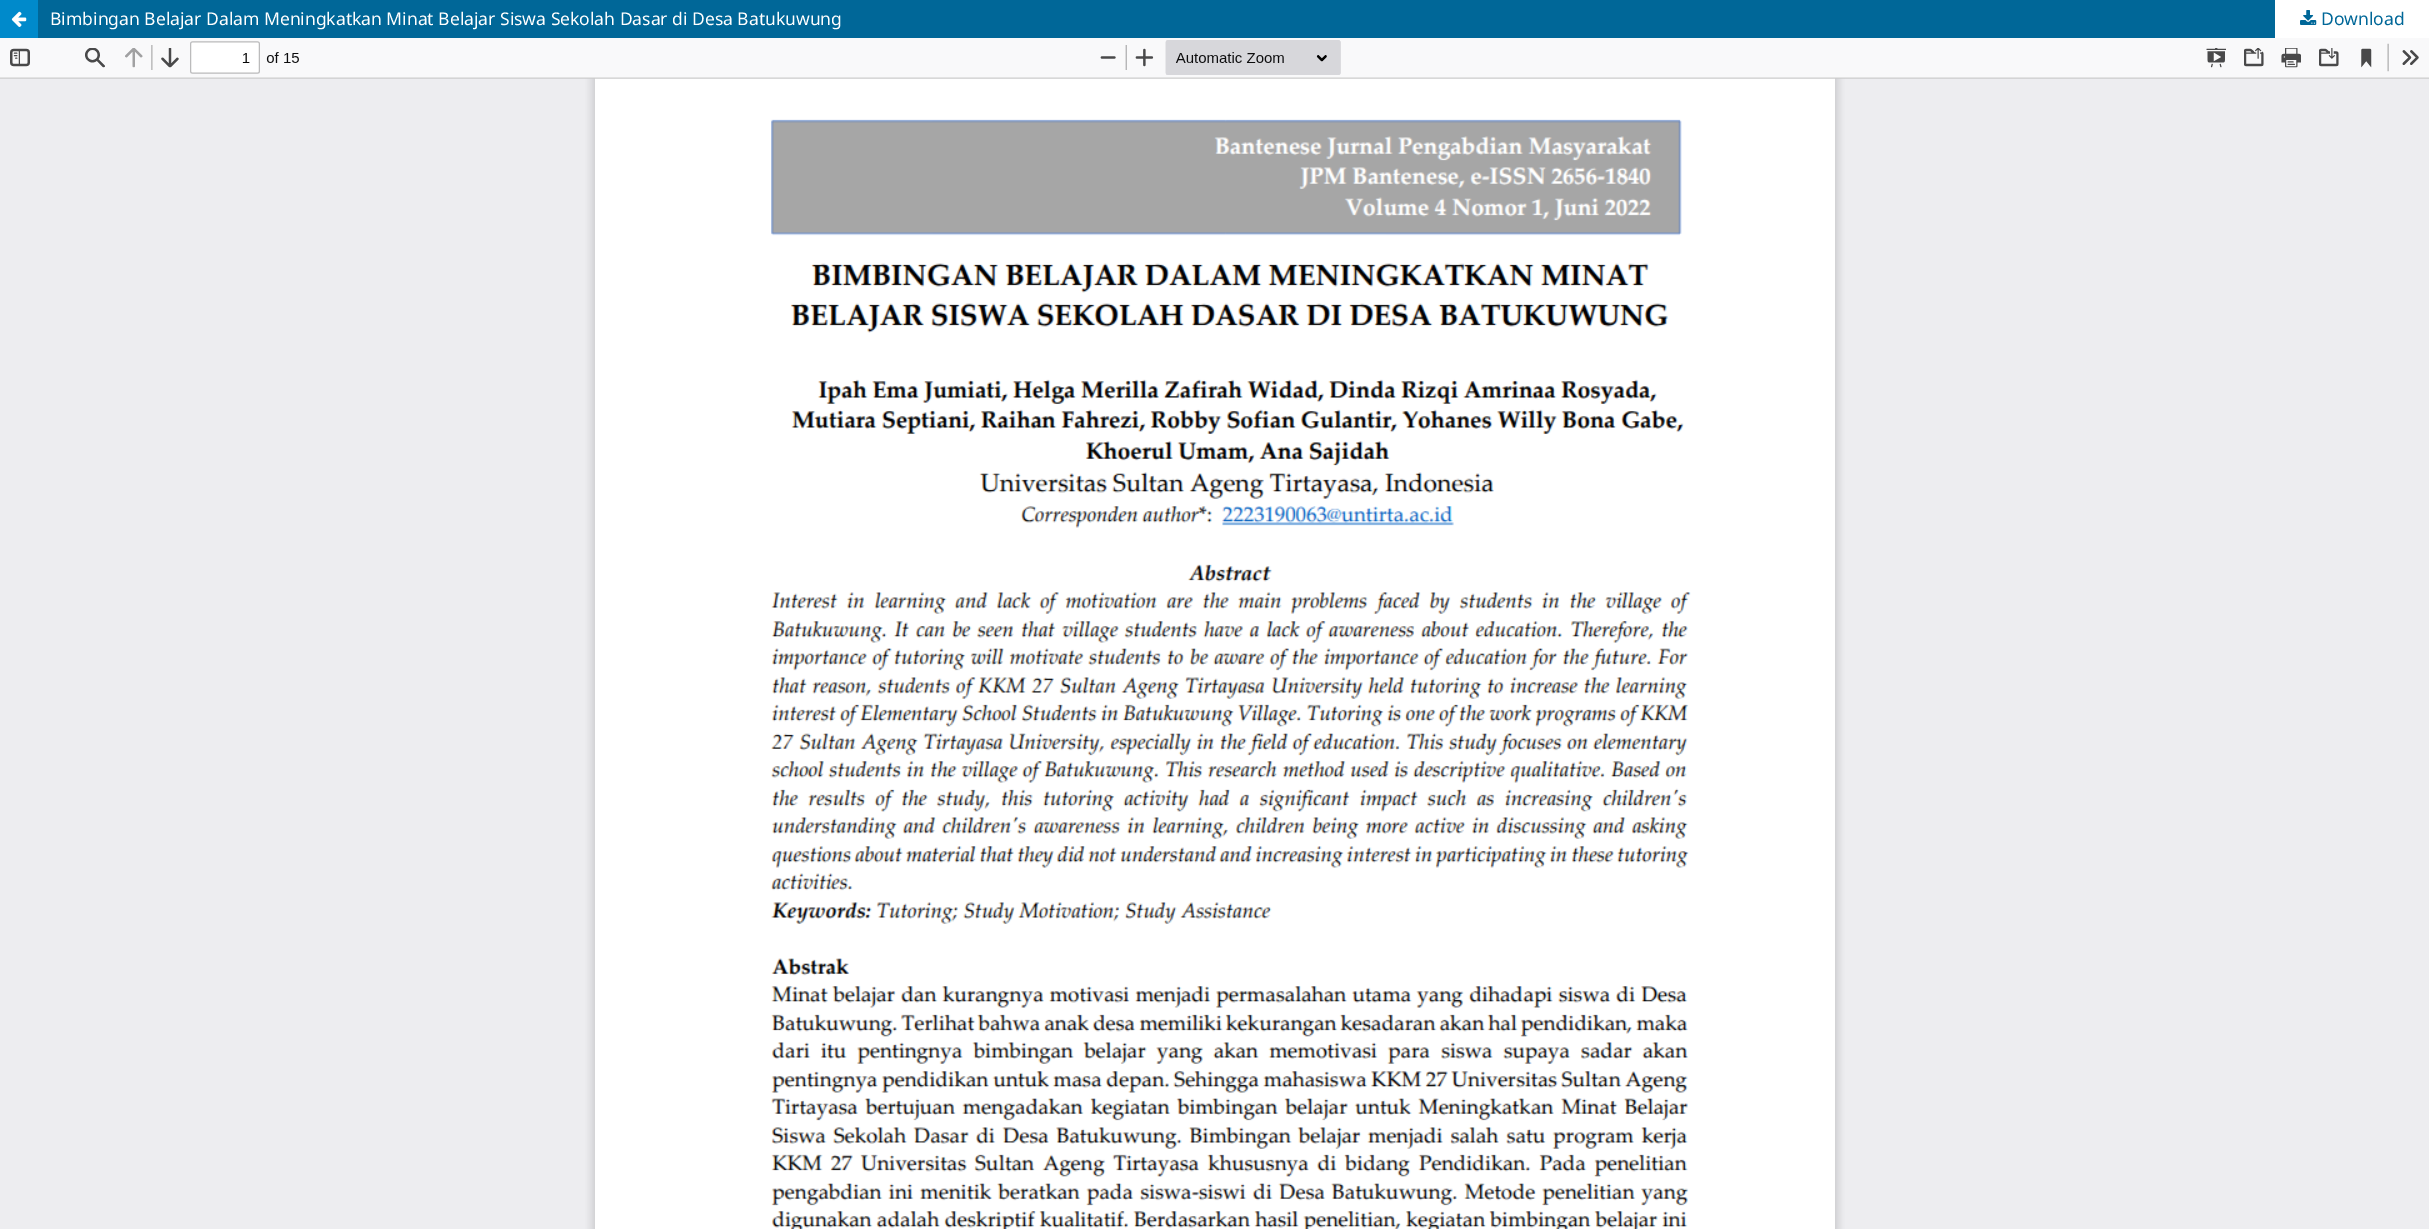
%!PS
<< /PageSize [2429 1229] >> setpagedevice
/rgb { dup -16 bitshift 255 div exch dup -8 bitshift 255 and 255 div exch 255 and 255 div setrgbcolor } def
/font { [ exch dup neg 0 0 3 -1 roll 0 0 ] selectfont } def
/text { moveto show } def
/picture { 5 dict begin { /h /w /y /x /name } { exch def } forall
  gsave x y translate w h scale
  w h 8 [w 0 0 h 0 0] name (r) file false 3 colorimage grestore end } def
0 1229 translate 1 -1 scale
4 setmiterlimit
/s1 { /NotoSans-Regular 17.5 font 16#FFFFFF rgb } def
/s2 { /NotoSans-Regular 17.5 font 16#006798 rgb } def
16#FFFFFF rgb
0 0 2429 1229 rectfill
16#006798 rgb
38 0 2237 38 rectfill
16#008ACB rgb
0 0 38 38 rectfill
(pic1.raw) 11 11 16 16 picture
s1
(Bimbingan Belajar Dalam Meningkatkan Minat Belajar Siswa Sekolah Dasar di Desa Batukuwung) 50 25 text
(pic2.raw) 2300 10 17 15 picture
s2
(Download) 2321 25 text
(pic3.raw) 0 38 2429 1191 picture
showpage
